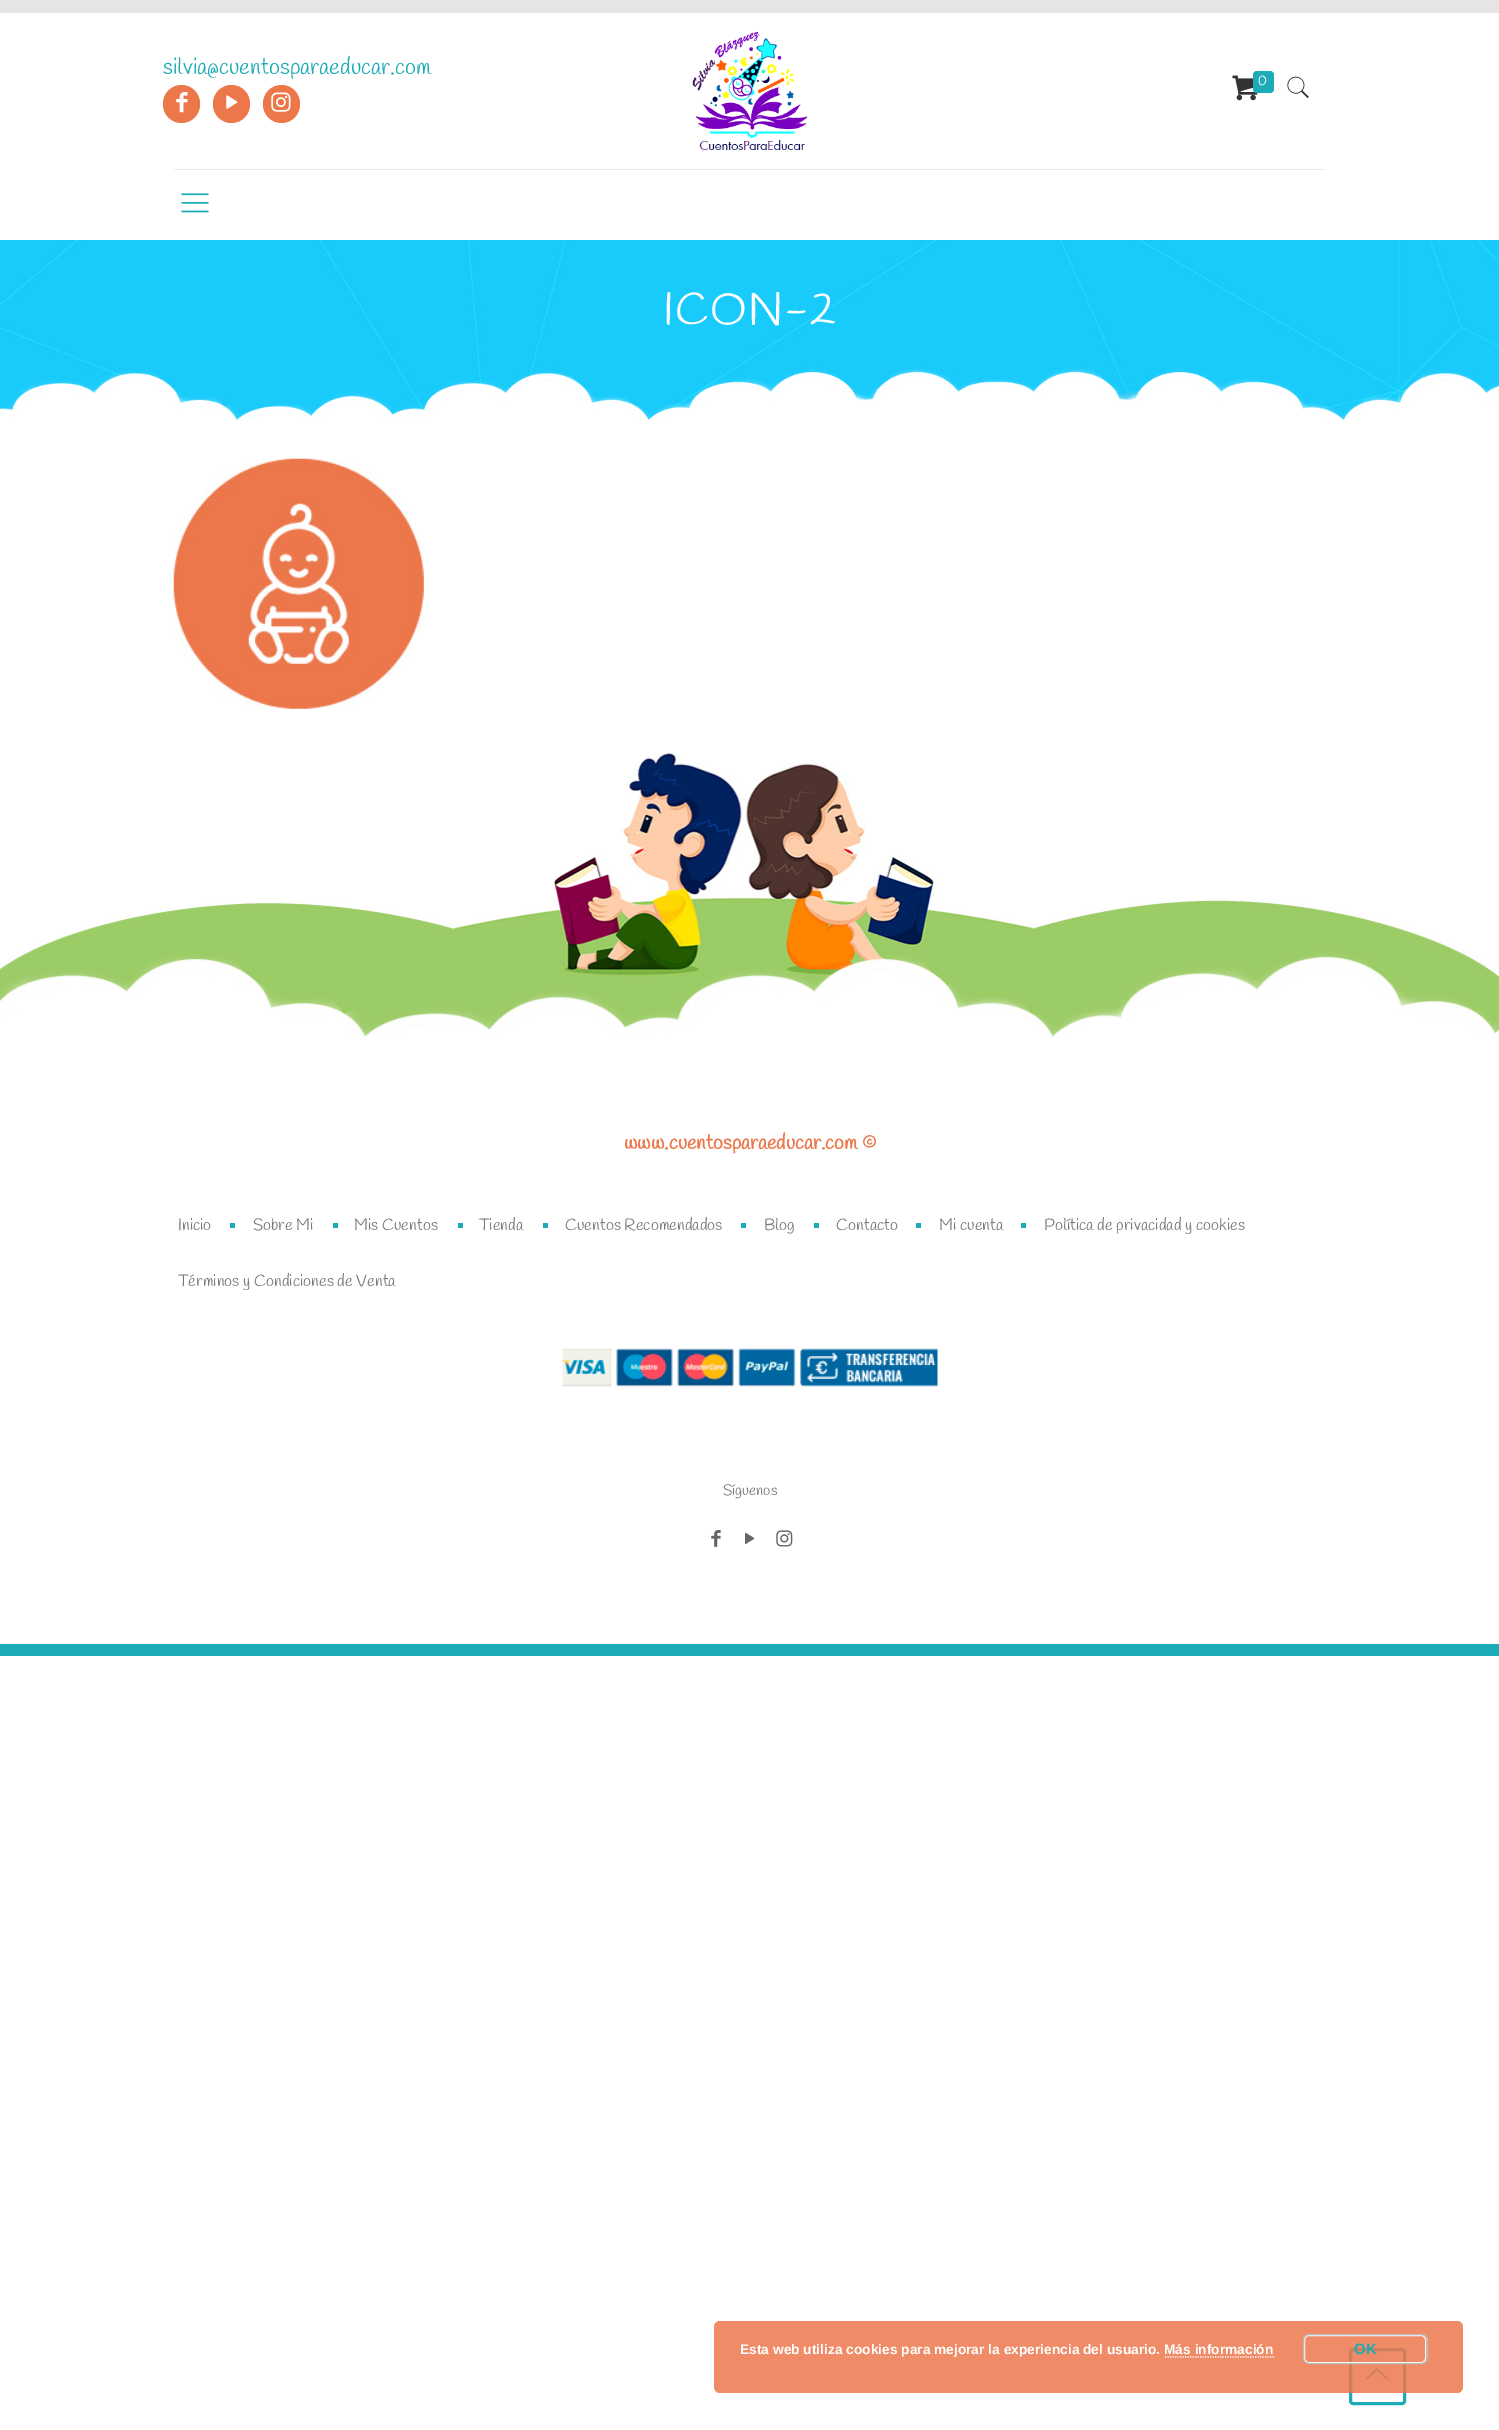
%!PS
<< /PageSize [1499 2430] /PageUsesTransparency true >> setpagedevice
/rgb { dup -16 bitshift 255 div exch dup -8 bitshift 255 and 255 div exch 255 and 255 div setrgbcolor } def
/font { [ exch dup neg 0 0 3 -1 roll 0 0 ] selectfont } def
/text { moveto show } def
/alpha { dup .setfillconstantalpha .setstrokeconstantalpha } def
/roundrect { 5 dict begin { /r /h /w /y /x } { exch def } forall
  x r add y moveto x w add y 2 copy h add r arct x w add y h add x 1 index r arct
  x y h add x y r arct x y 2 copy exch w add exch r arct closepath end } def
/picture { 5 dict begin { /h /w /y /x /name } { exch def } forall
  gsave x y translate w h scale
  w h 8 [w 0 0 h 0 0] name (r) file false 3 colorimage grestore end } def
0 .pushpdf14devicefilter
0 2430 translate 1 -1 scale
4 setmiterlimit
/s1 { /Handlee-Regular 22.5 font 16#1DABB8 rgb } def
/s2 { /Handlee-Regular 13.75 font 16#FFFFFF rgb } def
/s3 { /Handlee-Bold 20 font 16#EC774B rgb } def
/s4 { /Handlee-Regular 16.25 font 16#777777 rgb } def
/s5 { /Handlee-Regular 15 font 16#777777 rgb } def
/s6 { /LiberationSans-Bold 13.75 font 16#FFFFFF rgb } def
/s7 { /LiberationSans-Bold 15 font 16#1DABB8 rgb } def
16#FFFFFF rgb
0 0 1499 2430 rectfill
16#E5E5E5 rgb
0 0 1499 13 rectfill
16#1DABB8 rgb
0 1644 1499 12 rectfill
s1
(silvia@cuentosparaeducar.com) 163 74 text
16#EC7748 rgb
163 85 37 38 18.5 roundrect fill
(pic1.raw) 176 92 12 21 picture
213 85 37 38 18.5 roundrect fill
(pic2.raw) 226 95 12 14 picture
263 85 37 38 18.5 roundrect fill
(pic3.raw) 271 92 20 20 picture
16#EBEBEB rgb
174 169 1152 1 rectfill
(pic4.raw) 692 31 116 119 picture
(pic5.raw) 181 193 28 20 picture
(pic6.raw) 1232 75 26 26 picture
16#1DABB8 rgb
1253 71 21 22 4 roundrect fill
s2
(0) 1258 85 text
(pic7.raw) 1287 76 22 23 picture
(pic8.raw) 0 240 1499 181 picture
/Handlee-Regular 45 font
663 324 moveto 1.25 0 (ICON-2) ashow
(pic9.raw) 173 458 251 251 picture
(pic10.raw) 0 752 1499 287 picture
s3
(www.cuentosparaeducar.com ©) 624 1149 text
s4
(Inicio) 178 1230 text
16#1DABB8 rgb
230 1223 5 5 rectfill
s4
(Sobre Mi) 253 1230 text
16#1DABB8 rgb
333 1223 5 5 rectfill
s4
(Mis Cuentos) 354 1230 text
16#1DABB8 rgb
458 1223 5 5 rectfill
s4
(Tienda) 479 1230 text
16#1DABB8 rgb
543 1223 5 5 rectfill
s4
(Cuentos Recomendados) 565 1230 text
16#1DABB8 rgb
741 1223 5 5 rectfill
s4
(Blog) 764 1230 text
16#1DABB8 rgb
814 1223 5 5 rectfill
s4
(Contacto) 836 1230 text
16#1DABB8 rgb
916 1223 5 5 rectfill
s4
(Mi cuenta) 939 1230 text
16#1DABB8 rgb
1021 1223 5 5 rectfill
s4
(Política de privacidad y cookies) 1044 1230 text
(Términos y Condiciones de Venta) 178 1286 text
(pic11.raw) 562 1348 376 39 picture
s5
(Síguenos) 723 1495 text
(pic12.raw) 711 1530 10 17 picture
(pic13.raw) 745 1532 10 12 picture
(pic14.raw) 776 1530 17 17 picture
16#1DABB8 rgb
3 setlinewidth
1350.5 2349.5 54 54 2.5 roundrect stroke
(pic15.raw) 1366 2368 22 12 picture
0.85 alpha
16#EC774B rgb
714 2321 749 72 6 roundrect fill
1 alpha
s6
(Esta web utiliza cookies para mejorar la experiencia del usuario. Más información) 740 2354 text
16#F6F6F6 rgb
1 setlinewidth
1304.5 2335.5 121 27 4.5 roundrect stroke
16#BBBBBB rgb
1303.5 2334.5 124 29 5.5 roundrect stroke
s7
(OK) 1354 2354 text
16#FFFFFF rgb
1.2 setlinewidth
[1.25 1.25] 0 setdash
1165 2357 moveto 1274 2357 lineto stroke
.poppdf14devicefilter showpage
